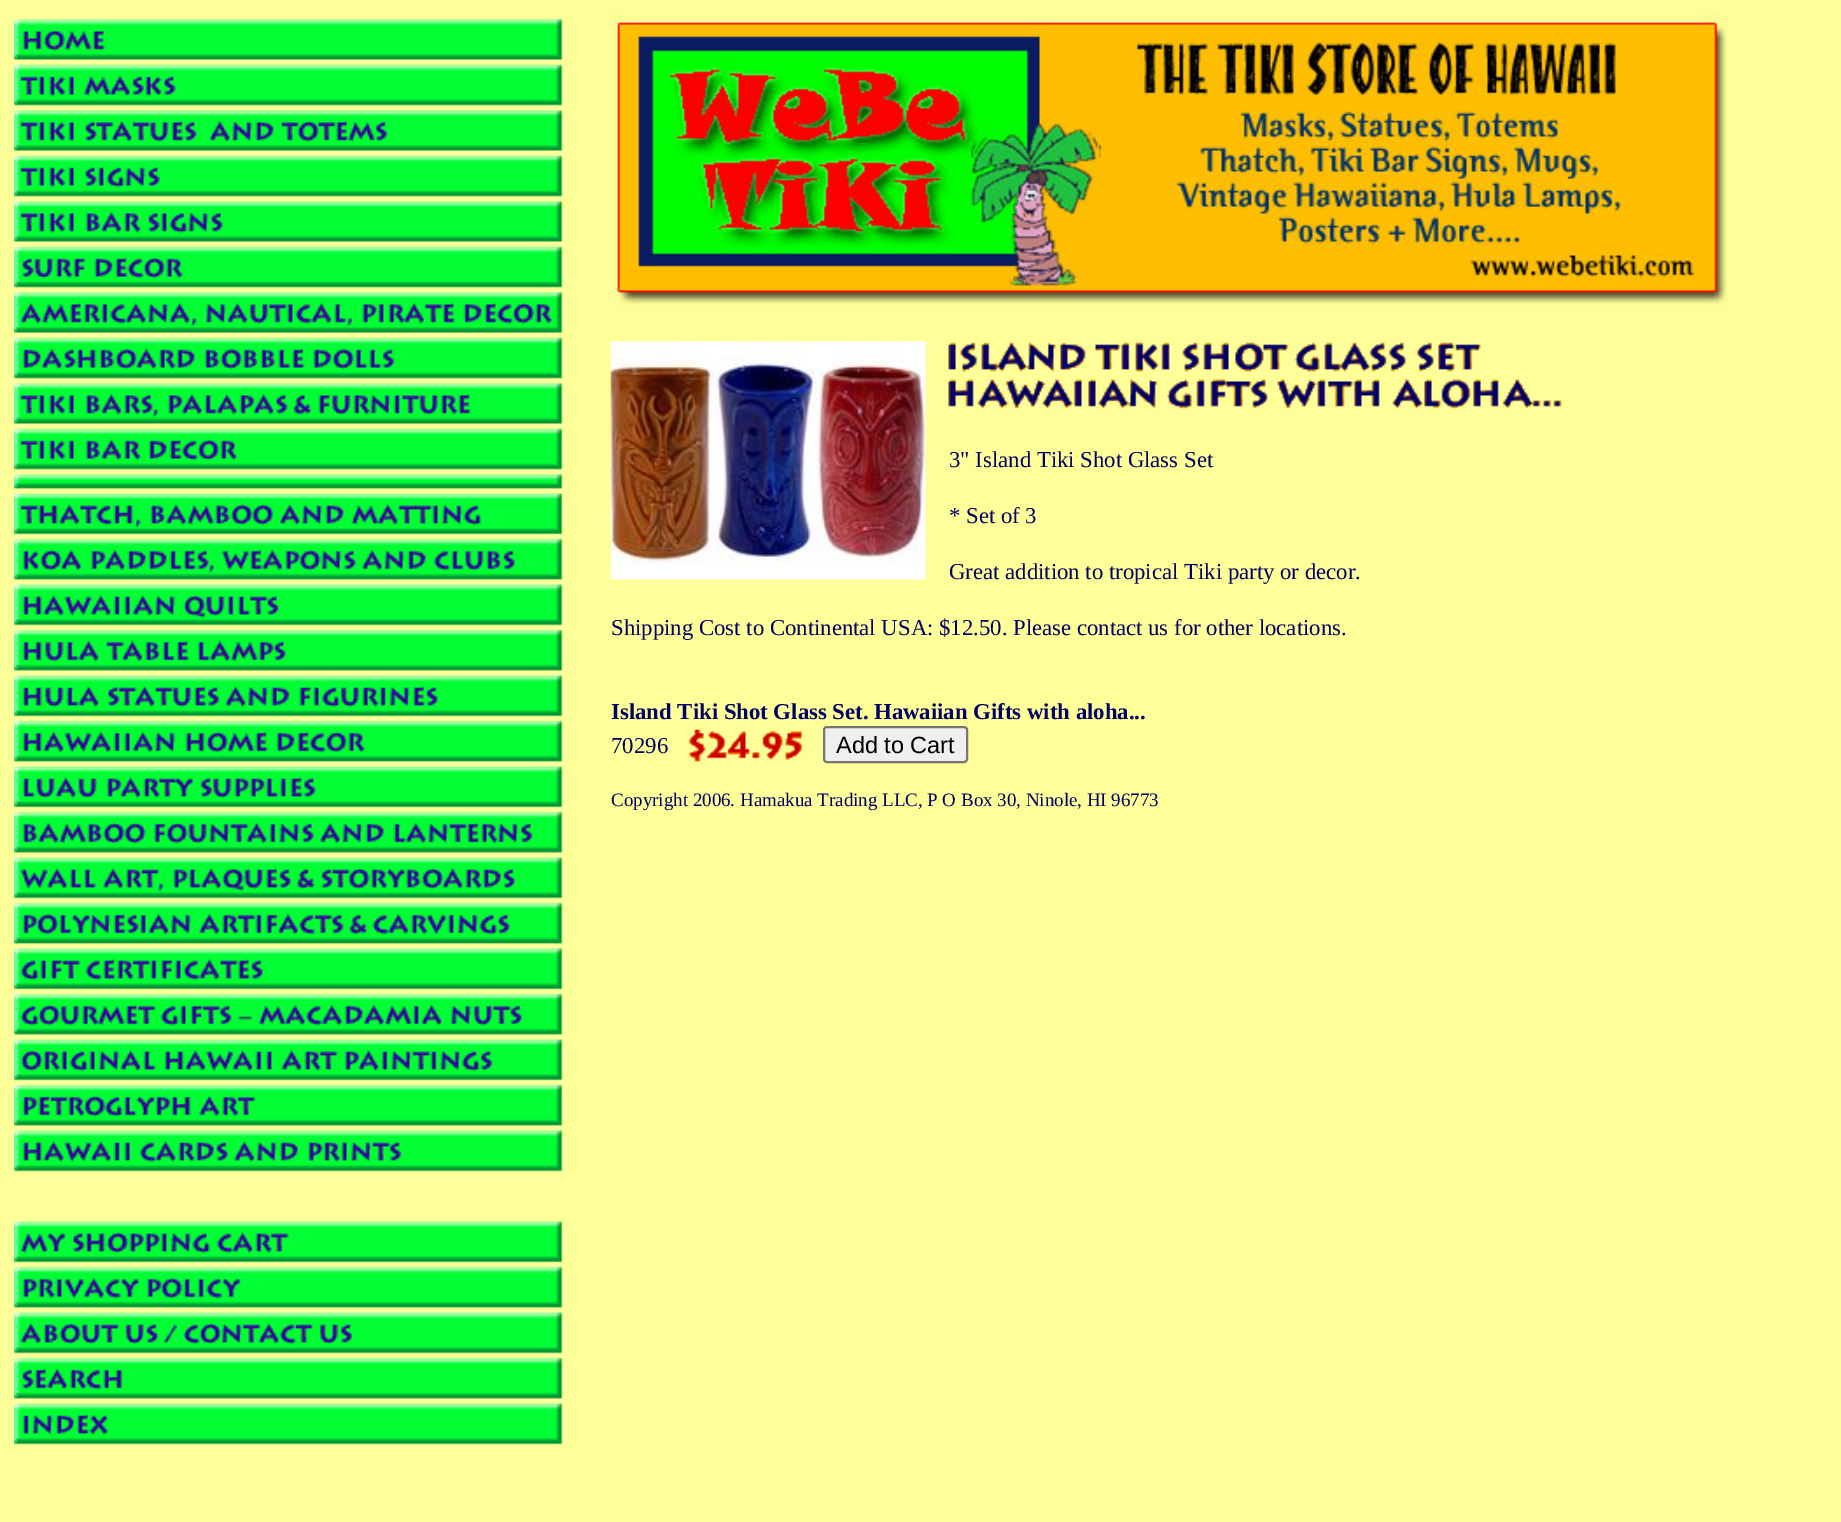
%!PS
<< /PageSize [1841 1522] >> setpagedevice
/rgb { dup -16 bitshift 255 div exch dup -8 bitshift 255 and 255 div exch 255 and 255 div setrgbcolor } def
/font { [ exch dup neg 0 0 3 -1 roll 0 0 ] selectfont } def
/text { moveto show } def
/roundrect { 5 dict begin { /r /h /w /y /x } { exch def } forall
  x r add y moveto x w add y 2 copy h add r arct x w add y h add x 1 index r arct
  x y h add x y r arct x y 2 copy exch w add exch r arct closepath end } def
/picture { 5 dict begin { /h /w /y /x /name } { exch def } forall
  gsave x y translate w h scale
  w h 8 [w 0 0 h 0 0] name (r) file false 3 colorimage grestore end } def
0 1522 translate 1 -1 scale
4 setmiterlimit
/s1 { /LiberationSerif-Regular 22.75 font 16#000066 rgb } def
/s2 { /LiberationSerif-Bold 22.75 font 16#000066 rgb } def
/s3 { /LiberationSans-Regular 23.5 font 16#000000 rgb } def
/s4 { /LiberationSerif-Regular 18.95 font 16#000066 rgb } def
16#FFFF99 rgb
0 0 1841 1522 rectfill
(pic1.raw) 14 18 549 1427 picture
(pic2.raw) 610 14 1117 291 picture
(pic3.raw) 610 341 316 239 picture
(pic4.raw) 948 342 614 67 picture
s1
(3" Island Tiki Shot Glass Set) 949 467 text
(* Set of 3) 949 523 text
(Great addition to tropical Tiki party or decor.) 949 579 text
(Shipping Cost to Continental USA: $12.50. Please contact us for other locations.) 611 635 text
s2
(Island Tiki Shot Glass Set. Hawaiian Gifts with aloha...) 611 719 text
s1
(70296) 611 753 text
(pic5.raw) 689 729 113 33 picture
16#EFEFEF rgb
824 727 143 35 3 roundrect gsave fill grestore
16#767676 rgb
2 setlinewidth
stroke
s3
(Add to Cart) 836 753 text
s4
(Copyright 2006. Hamakua Trading LLC, P O Box 30, Ninole, HI 96773) 611 806 text
showpage
